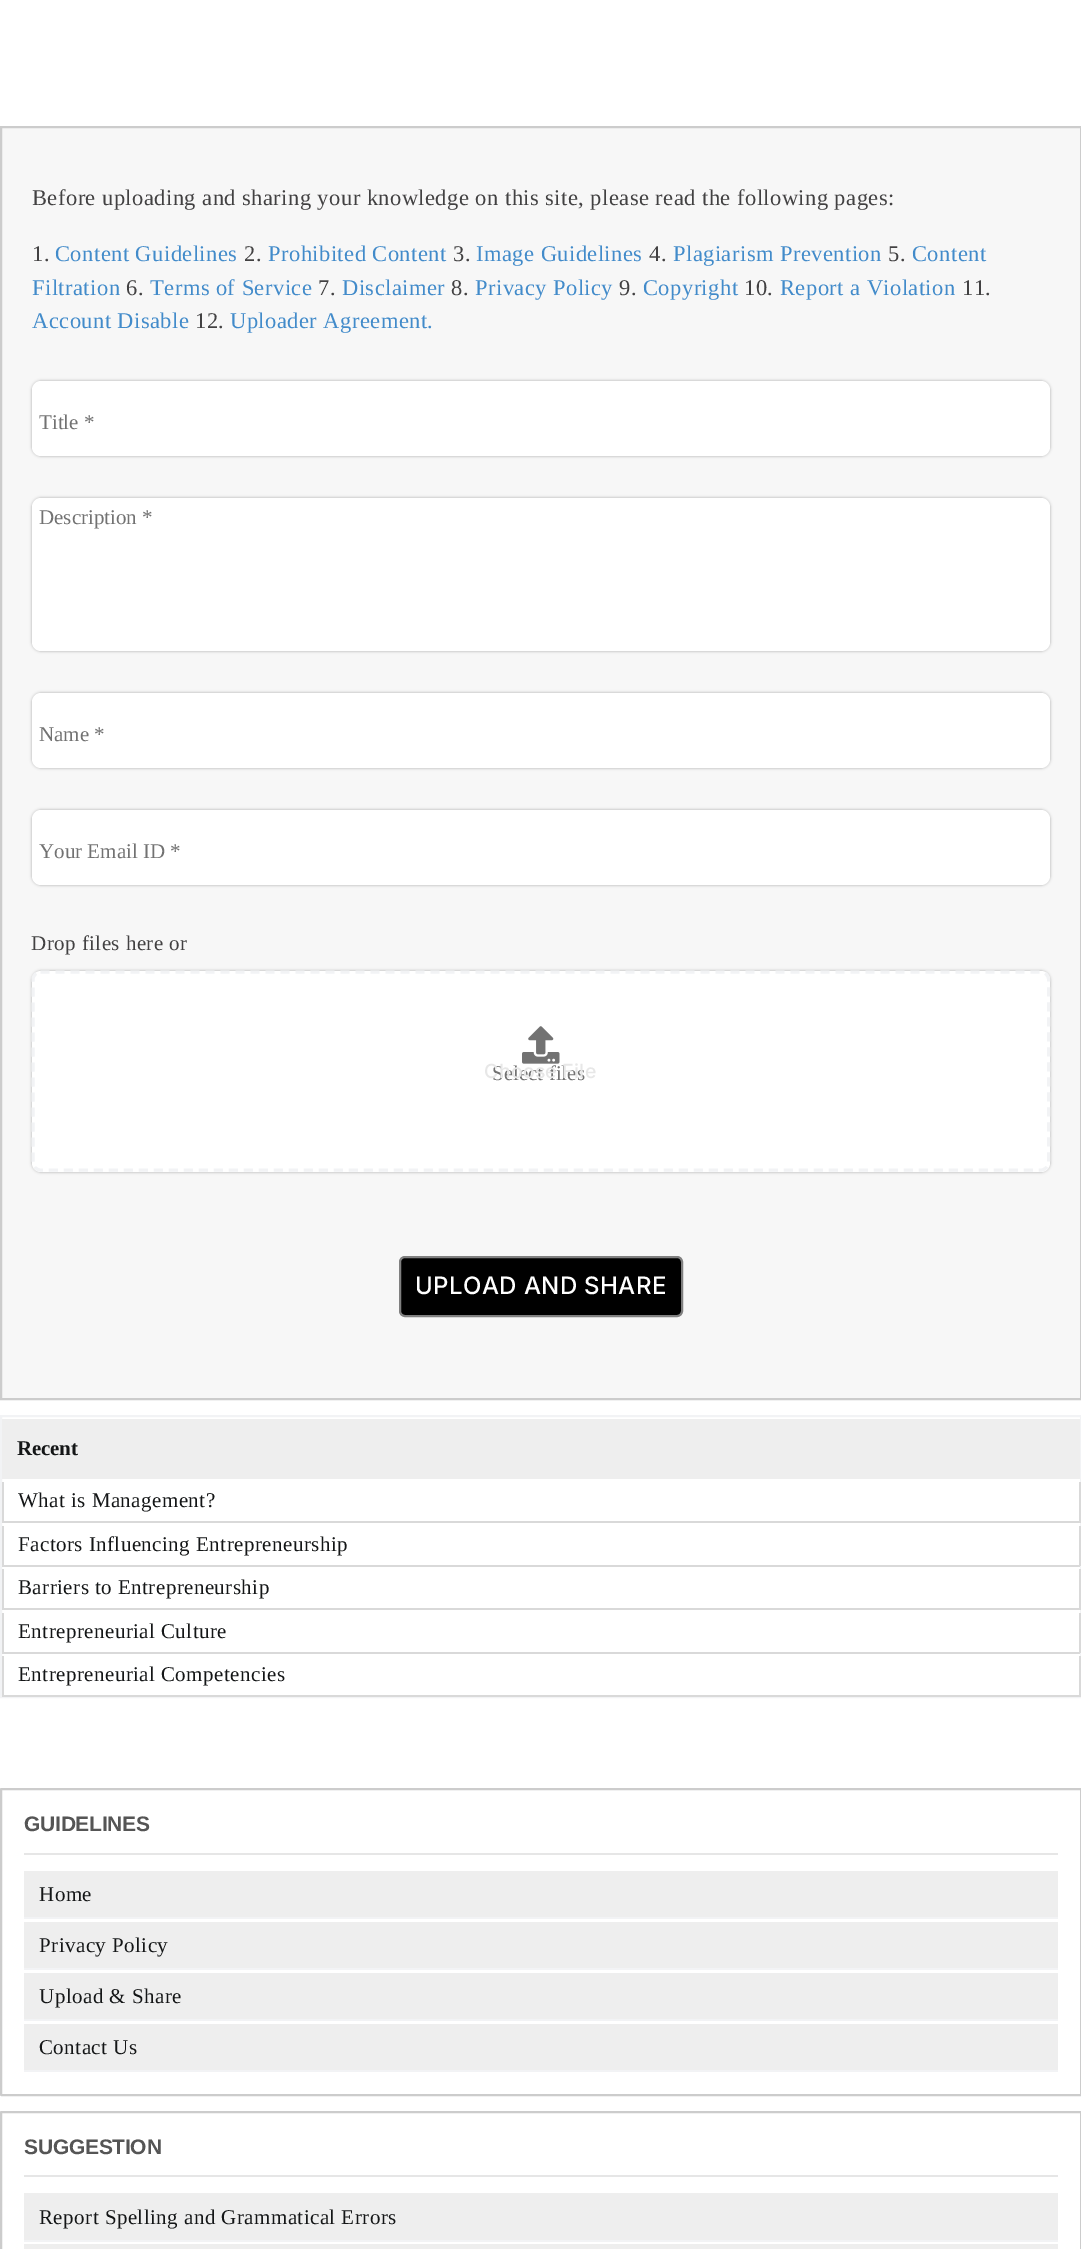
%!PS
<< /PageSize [1081 2249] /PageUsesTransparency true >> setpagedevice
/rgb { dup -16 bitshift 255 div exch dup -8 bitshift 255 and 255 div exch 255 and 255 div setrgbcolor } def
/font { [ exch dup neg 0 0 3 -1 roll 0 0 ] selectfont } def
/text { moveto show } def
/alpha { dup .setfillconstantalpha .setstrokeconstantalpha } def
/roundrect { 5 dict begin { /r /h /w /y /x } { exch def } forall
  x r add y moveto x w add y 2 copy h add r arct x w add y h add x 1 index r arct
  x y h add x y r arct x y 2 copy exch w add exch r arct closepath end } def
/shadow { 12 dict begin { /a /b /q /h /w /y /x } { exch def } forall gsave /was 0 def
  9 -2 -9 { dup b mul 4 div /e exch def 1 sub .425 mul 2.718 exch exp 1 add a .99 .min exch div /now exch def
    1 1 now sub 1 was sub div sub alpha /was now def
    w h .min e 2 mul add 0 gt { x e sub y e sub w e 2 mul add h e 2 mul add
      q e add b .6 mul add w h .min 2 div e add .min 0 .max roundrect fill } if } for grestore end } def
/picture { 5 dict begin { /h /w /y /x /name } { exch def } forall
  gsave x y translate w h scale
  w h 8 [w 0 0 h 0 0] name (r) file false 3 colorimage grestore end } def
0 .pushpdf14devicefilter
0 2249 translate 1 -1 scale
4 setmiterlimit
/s1 { /LiberationSerif-Regular 21 font 16#727272 rgb } def
16#FFFFFF rgb
0 0 1081 2249 rectfill
16#F7F7F7 rgb
1 127 moveto 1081 127 lineto 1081 1399 lineto 1 1399 lineto closepath gsave fill grestore
16#CCCCCC rgb
2 setlinewidth
stroke
/LiberationSerif-Regular 22.5 font
16#424142 rgb
32 205 moveto 0.45 0 (Before uploading and sharing your knowledge on this site, please read the following pages:) ashow
32 261 moveto 0.45 0 (1.) ashow
16#428BCA rgb
55 261 moveto 0.45 0 (Content Guidelines) ashow
16#424142 rgb
244 261 moveto 0.45 0 (2.) ashow
16#428BCA rgb
268 261 moveto 0.45 0 (Prohibited Content) ashow
16#424142 rgb
453 261 moveto 0.45 0 (3.) ashow
16#428BCA rgb
476 261 moveto 0.45 0 (Image Guidelines) ashow
16#424142 rgb
649 261 moveto 0.45 0 (4.) ashow
16#428BCA rgb
673 261 moveto 0.45 0 (Plagiarism Prevention) ashow
16#424142 rgb
888 261 moveto 0.45 0 (5.) ashow
16#428BCA rgb
912 261 moveto 0.45 0 (Content) ashow
32 295 moveto 0.45 0 (Filtration) ashow
16#424142 rgb
126 295 moveto 0.45 0 (6.) ashow
16#428BCA rgb
150 295 moveto 0.45 0 (Terms of Service) ashow
16#424142 rgb
318 295 moveto 0.45 0 (7.) ashow
16#428BCA rgb
342 295 moveto 0.45 0 (Disclaimer) ashow
16#424142 rgb
451 295 moveto 0.45 0 (8.) ashow
16#428BCA rgb
475 295 moveto 0.45 0 (Privacy Policy) ashow
16#424142 rgb
619 295 moveto 0.45 0 (9.) ashow
16#428BCA rgb
643 295 moveto 0.45 0 (Copyright) ashow
16#424142 rgb
744 295 moveto 0.45 0 (10.) ashow
16#428BCA rgb
780 295 moveto 0.45 0 (Report a Violation) ashow
16#424142 rgb
962 295 moveto 0.45 0 (11.) ashow
16#428BCA rgb
32 328 moveto 0.45 0 (Account Disable) ashow
16#424142 rgb
195 328 moveto 0.45 0 (12.) ashow
16#428BCA rgb
230 328 moveto 0.45 0 (Uploader Agreement.) ashow
16#AAAAAA rgb
32 381 1018 75 9 1.5 1 shadow
16#FFFFFF rgb
32 381 1018 75 9 roundrect fill
s1
(Title *) 39 429 text
16#AAAAAA rgb
32 498 1018 153 9 1.5 1 shadow
16#FFFFFF rgb
32 498 1018 153 9 roundrect fill
s1
(Description *) 39 524 text
16#AAAAAA rgb
32 693 1018 75 9 1.5 1 shadow
16#FFFFFF rgb
32 693 1018 75 9 roundrect fill
s1
(Name *) 39 741 text
16#AAAAAA rgb
32 810 1018 75 9 1.5 1 shadow
16#FFFFFF rgb
32 810 1018 75 9 roundrect fill
s1
(Your Email ID *) 39 858 text
16#424142 rgb
31 950 moveto 0.45 0 (Drop files here or) ashow
16#AAAAAA rgb
32 971 1018 201 9 1.5 1 shadow
16#FFFFFF rgb
32 971 1018 201 9 roundrect fill
16#F2F3F5 rgb
3 setlinewidth
[9 6] 0 setdash
40.5 972 moveto 1041 972 lineto 1045 972 1048.5 975.5 1048.5 979.5 curveto 1048.5 1162.5 lineto 1048.5 1166.5 1045 1170 1041 1170 curveto 40.5 1170 lineto 36.5 1170 33 1166.5 33 1162.5 curveto 33 979.5 lineto 33 975.5 36.5 972 40.5 972 curveto closepath stroke
(pic1.raw) 522 1026 38 38 picture
s1
(Select files) 492 1080 text
/Inter-Medium 19.5 font
16#E7E7E7 rgb
484 1078 moveto 0.25 0 (Choose File) ashow
16#000000 rgb
400 1257 282 59 5 roundrect gsave fill grestore
16#808080 rgb
2 setlinewidth
[] 0 setdash
stroke
/Inter-Medium 24 font
16#FFFFFF rgb
415 1294 moveto 0.4 0 (UPLOAD AND SHARE) ashow
16#F2F3F5 rgb
1 1416 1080 281 rectstroke
16#EEEEEE rgb
2 1419 1078 60 rectfill
/LiberationSerif-Bold 21 font
16#141617 rgb
17 1455 moveto -0.25 0 (Recent) ashow
16#D9D9D9 rgb
1079 1482 2 41 rectfill
2 1521 1078 2 rectfill
2 1482 2 41 rectfill
/LiberationSerif-Regular 21 font
16#141617 rgb
18 1507 moveto 0.45 0 (What is Management?) ashow
16#D9D9D9 rgb
1079 1526 2 40 rectfill
2 1565 1078 2 rectfill
2 1526 2 40 rectfill
16#141617 rgb
18 1551 moveto 0.45 0 (Factors Influencing Entrepreneurship) ashow
16#D9D9D9 rgb
1079 1569 2 41 rectfill
2 1608 1078 2 rectfill
2 1569 2 41 rectfill
16#141617 rgb
18 1594 moveto 0.45 0 (Barriers to Entrepreneurship) ashow
16#D9D9D9 rgb
1079 1613 2 40 rectfill
2 1652 1078 2 rectfill
2 1613 2 40 rectfill
16#141617 rgb
18 1638 moveto 0.45 0 (Entrepreneurial Culture) ashow
16#D9D9D9 rgb
1079 1656 2 41 rectfill
2 1695 1078 2 rectfill
2 1656 2 41 rectfill
16#141617 rgb
18 1681 moveto 0.45 0 (Entrepreneurial Competencies) ashow
16#CCCCCC rgb
1 1789 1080 306 0.5 roundrect stroke
16#E6E6E6 rgb
24 1853 1034 2 rectfill
/LiberationSans-Bold 21 font
16#555555 rgb
24 1831 moveto -0.25 0 (GUIDELINES) ashow
16#EEEEEE rgb
24 1871 1034 46 rectfill
16#F2F3F5 rgb
24 1917 1034 2 rectfill
/LiberationSerif-Regular 21 font
16#141617 rgb
39 1901 moveto 0.45 0 (Home) ashow
16#EEEEEE rgb
24 1922 1034 46 rectfill
16#F2F3F5 rgb
24 1968 1034 2 rectfill
16#141617 rgb
39 1952 moveto 0.45 0 (Privacy Policy) ashow
16#EEEEEE rgb
24 1973 1034 46 rectfill
16#F2F3F5 rgb
24 2019 1034 2 rectfill
16#141617 rgb
39 2003 moveto 0.45 0 (Upload & Share) ashow
16#EEEEEE rgb
24 2024 1034 46 rectfill
16#F2F3F5 rgb
24 2070 1034 2 rectfill
16#141617 rgb
39 2054 moveto 0.45 0 (Contact Us) ashow
16#CCCCCC rgb
1 2112 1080 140 0.5 roundrect stroke
16#E6E6E6 rgb
24 2175 1034 2 rectfill
/LiberationSans-Bold 21 font
16#555555 rgb
24 2154 moveto -0.25 0 (SUGGESTION) ashow
16#EEEEEE rgb
24 2193 1034 47 rectfill
16#F2F3F5 rgb
24 2240 1034 2 rectfill
/LiberationSerif-Regular 21 font
16#141617 rgb
39 2224 moveto 0.45 0 (Report Spelling and Grammatical Errors) ashow
16#EEEEEE rgb
24 2244 1034 5 rectfill
.poppdf14devicefilter showpage
